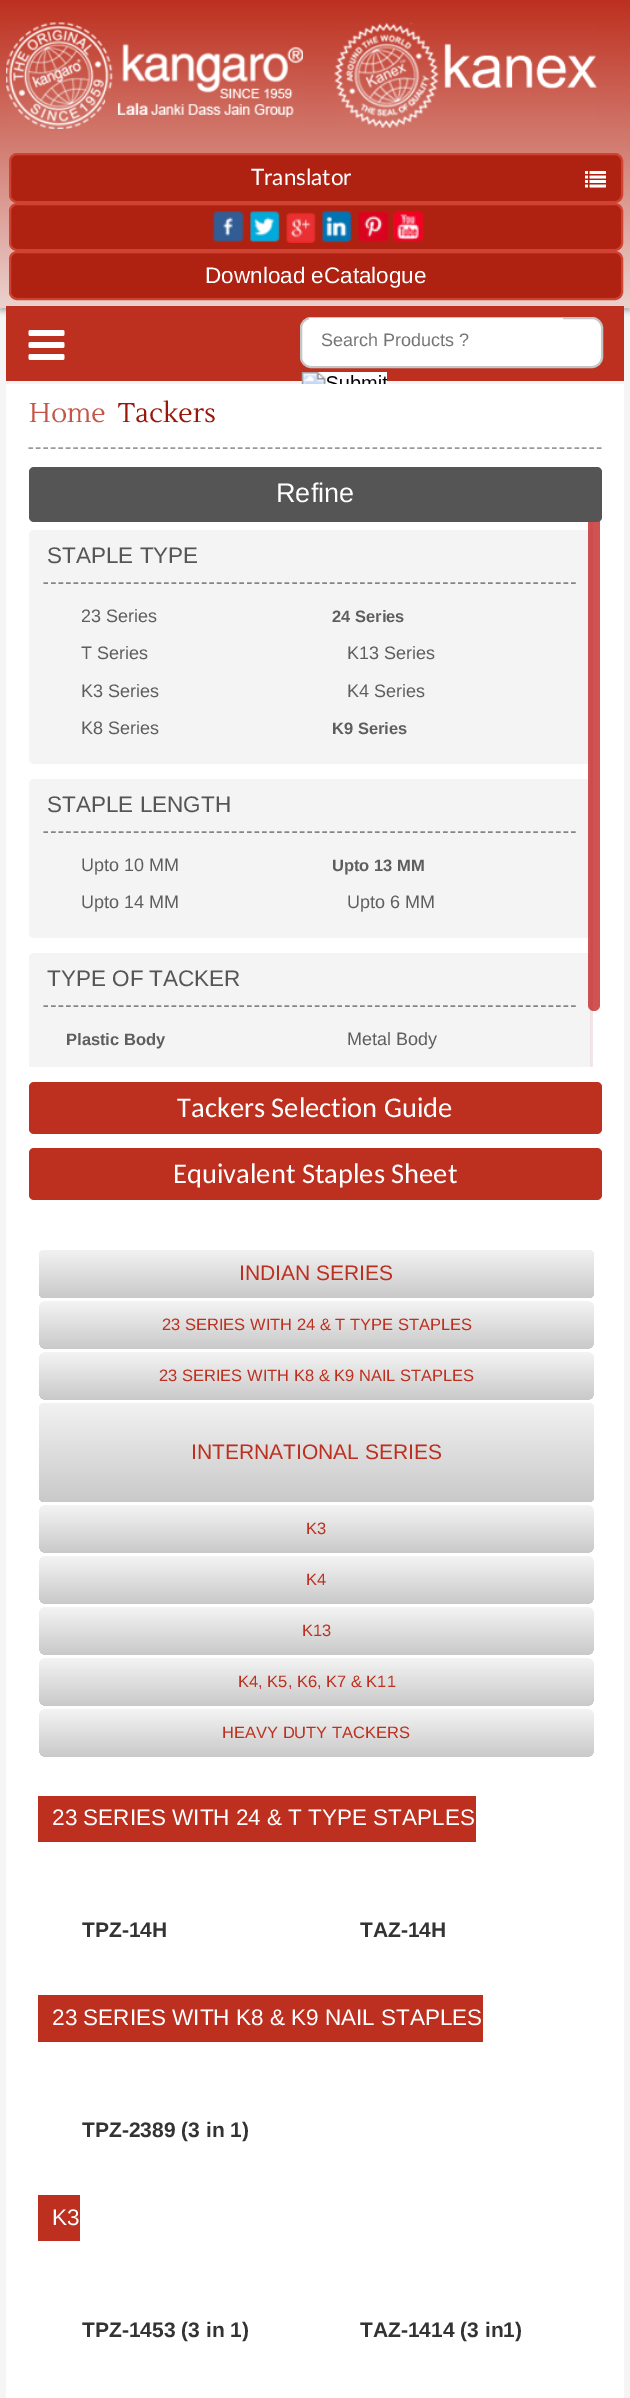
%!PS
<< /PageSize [630 2398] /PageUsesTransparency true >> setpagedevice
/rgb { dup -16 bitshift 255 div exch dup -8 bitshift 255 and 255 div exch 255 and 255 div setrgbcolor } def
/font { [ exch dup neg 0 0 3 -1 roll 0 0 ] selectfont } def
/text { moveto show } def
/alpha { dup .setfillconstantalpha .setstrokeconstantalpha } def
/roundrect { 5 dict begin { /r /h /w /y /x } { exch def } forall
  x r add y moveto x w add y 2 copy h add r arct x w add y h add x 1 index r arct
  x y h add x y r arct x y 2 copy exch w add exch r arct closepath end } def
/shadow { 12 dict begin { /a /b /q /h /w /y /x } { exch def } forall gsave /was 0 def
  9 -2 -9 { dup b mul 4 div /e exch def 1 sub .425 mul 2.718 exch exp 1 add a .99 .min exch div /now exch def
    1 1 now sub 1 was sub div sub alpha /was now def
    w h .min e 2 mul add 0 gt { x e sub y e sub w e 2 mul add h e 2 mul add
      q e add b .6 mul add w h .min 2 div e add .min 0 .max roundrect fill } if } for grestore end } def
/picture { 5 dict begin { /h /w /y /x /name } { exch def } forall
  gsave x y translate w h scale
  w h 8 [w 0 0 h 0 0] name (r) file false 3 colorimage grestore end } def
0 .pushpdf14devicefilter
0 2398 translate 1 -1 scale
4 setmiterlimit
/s1 { /Lato-Regular 22.5 font 16#FFFFFF rgb } def
/s2 { /LiberationSans-Regular 22.5 font 16#FFFFFF rgb } def
/s3 { /LiberationSans-Regular 18 font 16#757575 rgb } def
/s4 { /Lustria-Regular 27 font 16#C55548 rgb } def
/s5 { /Lustria-Regular 27 font 16#9A170B rgb } def
/s6 { /LiberationSans-Regular 27 font 16#FFFFFF rgb } def
/s7 { /LiberationSans-Regular 22.5 font 16#565656 rgb } def
/s8 { /LiberationSans-Regular 18 font 16#5F5E5E rgb } def
/s9 { /LiberationSans-Bold 16.5 font 16#5F5E5E rgb } def
/s10 { /Carlito-Regular 28.5 font 16#FFFFFF rgb } def
/s11 { /LiberationSans-Regular 21 font 16#BD301F rgb } def
/s12 { /LiberationSans-Regular 16.5 font 16#BD301F rgb } def
/s13 { /LiberationSans-Bold 21 font 16#333333 rgb } def
16#F5F5F5 rgb
0 0 630 2398 rectfill
16#000000 rgb
0 3 630 308 0 3 0.3 shadow
gsave 0 0 moveto 630 0 lineto 630 308 lineto 0 308 lineto closepath clip newpath
<< /ShadingType 2 /ColorSpace /DeviceRGB /Coords [315 0 315 308] /Extend [true true] /Function << /FunctionType 2 /Domain [0 1] /C0 [0.741 0.188 0.122] /C1 [0.922 0.824 0.808] /N 1 >> >> shfill grestore
(pic1.raw) 6 22 297 107 picture
(pic2.raw) 334 22 263 106 picture
16#AF2211 rgb
10 154 612 48 7 roundrect gsave fill grestore
16#D04332 rgb
2 setlinewidth
stroke
s1
(Translator) 251 185 text
(pic3.raw) 585 171 21 17 picture
16#AF2211 rgb
10 204 612 46 7 roundrect gsave fill grestore
16#D04332 rgb
stroke
(pic4.raw) 212 211 32 31 picture
(pic5.raw) 250 211 31 31 picture
(pic6.raw) 286 212 30 31 picture
(pic7.raw) 322 210 30 33 picture
(pic8.raw) 357 211 32 31 picture
(pic9.raw) 393 210 31 32 picture
16#AF2211 rgb
10 252 612 47 7 roundrect gsave fill grestore
16#D04332 rgb
stroke
s2
(Download eCatalogue) 205 283 text
16#BD301F rgb
6 306 618 75 rectfill
(pic10.raw) 28 330 37 30 picture
16#FFFFFF rgb
301 318 301 49 10 roundrect gsave fill grestore
16#C3C5C6 rgb
stroke
16#FFFFFF rgb
309 318 254 2 rectfill
s3
(Search Products ?) 321 346 text
16#FFFFFF rgb
318 372 69 12 rectfill
(pic11.raw) 301 372 86 12 picture
6 384 618 2014 rectfill
16#999999 rgb
1.5 setlinewidth
[4.5 2.98] 0 setdash
28.5 448 moveto 601.5 448 lineto stroke
s4
(Home) 29 422 text
s5
(Tackers) 118 422 text
16#F4F4F4 rgb
29 530 562 234 5 roundrect fill
29 779 562 159 5 roundrect fill
34 953 moveto 586 953 lineto 589 953 591 955 591 958 curveto 591 1067 lineto 29 1067 lineto 29 958 lineto 29 955 31 953 34 953 curveto closepath fill
0.6 alpha
16#ECD5D5 rgb
590 467 3 600 1.5 roundrect fill
0.75 alpha
16#BF1A1A rgb
588 467 12 544 6 roundrect fill
1 alpha
16#555555 rgb
29 467 573 55 5 roundrect fill
s6
(Refine) 276 502 text
16#848484 rgb
[4.5 3.04] 0 setdash
43.5 583 moveto 576 583 lineto stroke
s7
(STAPLE TYPE) 47 563 text
s8
(23 Series) 81 622 text
s9
(24 Series) 332 622 text
s8
(T Series) 81 659 text
(K13 Series) 347 659 text
(K3 Series) 81 697 text
(K4 Series) 347 697 text
(K8 Series) 81 734 text
s9
(K9 Series) 332 734 text
16#848484 rgb
43.5 832 moveto 576 832 lineto stroke
s7
(STAPLE LENGTH) 47 812 text
s8
(Upto 10 MM) 81 871 text
s9
(Upto 13 MM) 332 871 text
s8
(Upto 14 MM) 81 908 text
(Upto 6 MM) 347 908 text
16#848484 rgb
43.5 1006 moveto 576 1006 lineto stroke
s7
(TYPE OF TACKER) 47 986 text
s9
(Plastic Body) 66 1045 text
s8
(Metal Body) 347 1045 text
16#BD301F rgb
29 1082 573 52 5 roundrect fill
s10
(Tackers Selection Guide) 177 1117 text
16#BD301F rgb
29 1148 573 52 5 roundrect fill
s10
(Equivalent Staples Sheet) 173 1183 text
gsave 39 1250 555 48 5 roundrect clip newpath
<< /ShadingType 2 /ColorSpace /DeviceRGB /Coords [317 1250 317 1298] /Extend [true true] /Function << /FunctionType 2 /Domain [0 1] /C0 [0.949 0.949 0.949] /C1 [0.788 0.788 0.788] /N 1 >> >> shfill grestore
s11
(INDIAN SERIES) 239 1280 text
gsave 39 1301 555 48 8 roundrect clip newpath
<< /ShadingType 2 /ColorSpace /DeviceRGB /Coords [317 1301 317 1349] /Extend [true true] /Function << /FunctionType 2 /Domain [0 1] /C0 [0.957 0.957 0.957] /C1 [0.788 0.788 0.788] /N 1 >> >> shfill grestore
s12
(23 SERIES WITH 24 & T TYPE STAPLES) 162 1330 text
gsave 39 1352 555 48 8 roundrect clip newpath
<< /ShadingType 2 /ColorSpace /DeviceRGB /Coords [317 1352 317 1400] /Extend [true true] /Function << /FunctionType 2 /Domain [0 1] /C0 [0.957 0.957 0.957] /C1 [0.788 0.788 0.788] /N 1 >> >> shfill grestore
(23 SERIES WITH K8 & K9 NAIL STAPLES) 159 1381 text
gsave 39 1403 555 99 5 roundrect clip newpath
<< /ShadingType 2 /ColorSpace /DeviceRGB /Coords [317 1403 317 1502] /Extend [true true] /Function << /FunctionType 2 /Domain [0 1] /C0 [0.949 0.949 0.949] /C1 [0.788 0.788 0.788] /N 1 >> >> shfill grestore
s11
(INTERNATIONAL SERIES) 191 1459 text
gsave 39 1505 555 48 8 roundrect clip newpath
<< /ShadingType 2 /ColorSpace /DeviceRGB /Coords [317 1505 317 1553] /Extend [true true] /Function << /FunctionType 2 /Domain [0 1] /C0 [0.957 0.957 0.957] /C1 [0.788 0.788 0.788] /N 1 >> >> shfill grestore
s12
(K3) 306 1534 text
gsave 39 1556 555 48 8 roundrect clip newpath
<< /ShadingType 2 /ColorSpace /DeviceRGB /Coords [317 1556 317 1604] /Extend [true true] /Function << /FunctionType 2 /Domain [0 1] /C0 [0.957 0.957 0.957] /C1 [0.788 0.788 0.788] /N 1 >> >> shfill grestore
(K4) 306 1585 text
gsave 39 1607 555 48 8 roundrect clip newpath
<< /ShadingType 2 /ColorSpace /DeviceRGB /Coords [317 1607 317 1655] /Extend [true true] /Function << /FunctionType 2 /Domain [0 1] /C0 [0.957 0.957 0.957] /C1 [0.788 0.788 0.788] /N 1 >> >> shfill grestore
(K13) 302 1636 text
gsave 39 1658 555 48 8 roundrect clip newpath
<< /ShadingType 2 /ColorSpace /DeviceRGB /Coords [317 1658 317 1706] /Extend [true true] /Function << /FunctionType 2 /Domain [0 1] /C0 [0.957 0.957 0.957] /C1 [0.788 0.788 0.788] /N 1 >> >> shfill grestore
(K4, K5, K6, K7 & K11) 238 1687 text
gsave 39 1709 555 48 8 roundrect clip newpath
<< /ShadingType 2 /ColorSpace /DeviceRGB /Coords [317 1709 317 1757] /Extend [true true] /Function << /FunctionType 2 /Domain [0 1] /C0 [0.957 0.957 0.957] /C1 [0.788 0.788 0.788] /N 1 >> >> shfill grestore
(HEAVY DUTY TACKERS) 222 1738 text
38 1796 438 46 rectfill
s2
(23 SERIES WITH 24 & T TYPE STAPLES) 52 1825 text
s13
(TPZ-14H) 82 1937 text
(TAZ-14H) 360 1937 text
16#BD301F rgb
38 1995 445 47 rectfill
s2
(23 SERIES WITH K8 & K9 NAIL STAPLES) 52 2025 text
s13
(TPZ-2389 \(3 in 1\)) 82 2137 text
16#BD301F rgb
38 2195 42 46 rectfill
s2
(K3) 52 2225 text
s13
(TPZ-1453 \(3 in 1\)) 82 2337 text
(TAZ-1414 \(3 in1\)) 360 2337 text
.poppdf14devicefilter showpage
